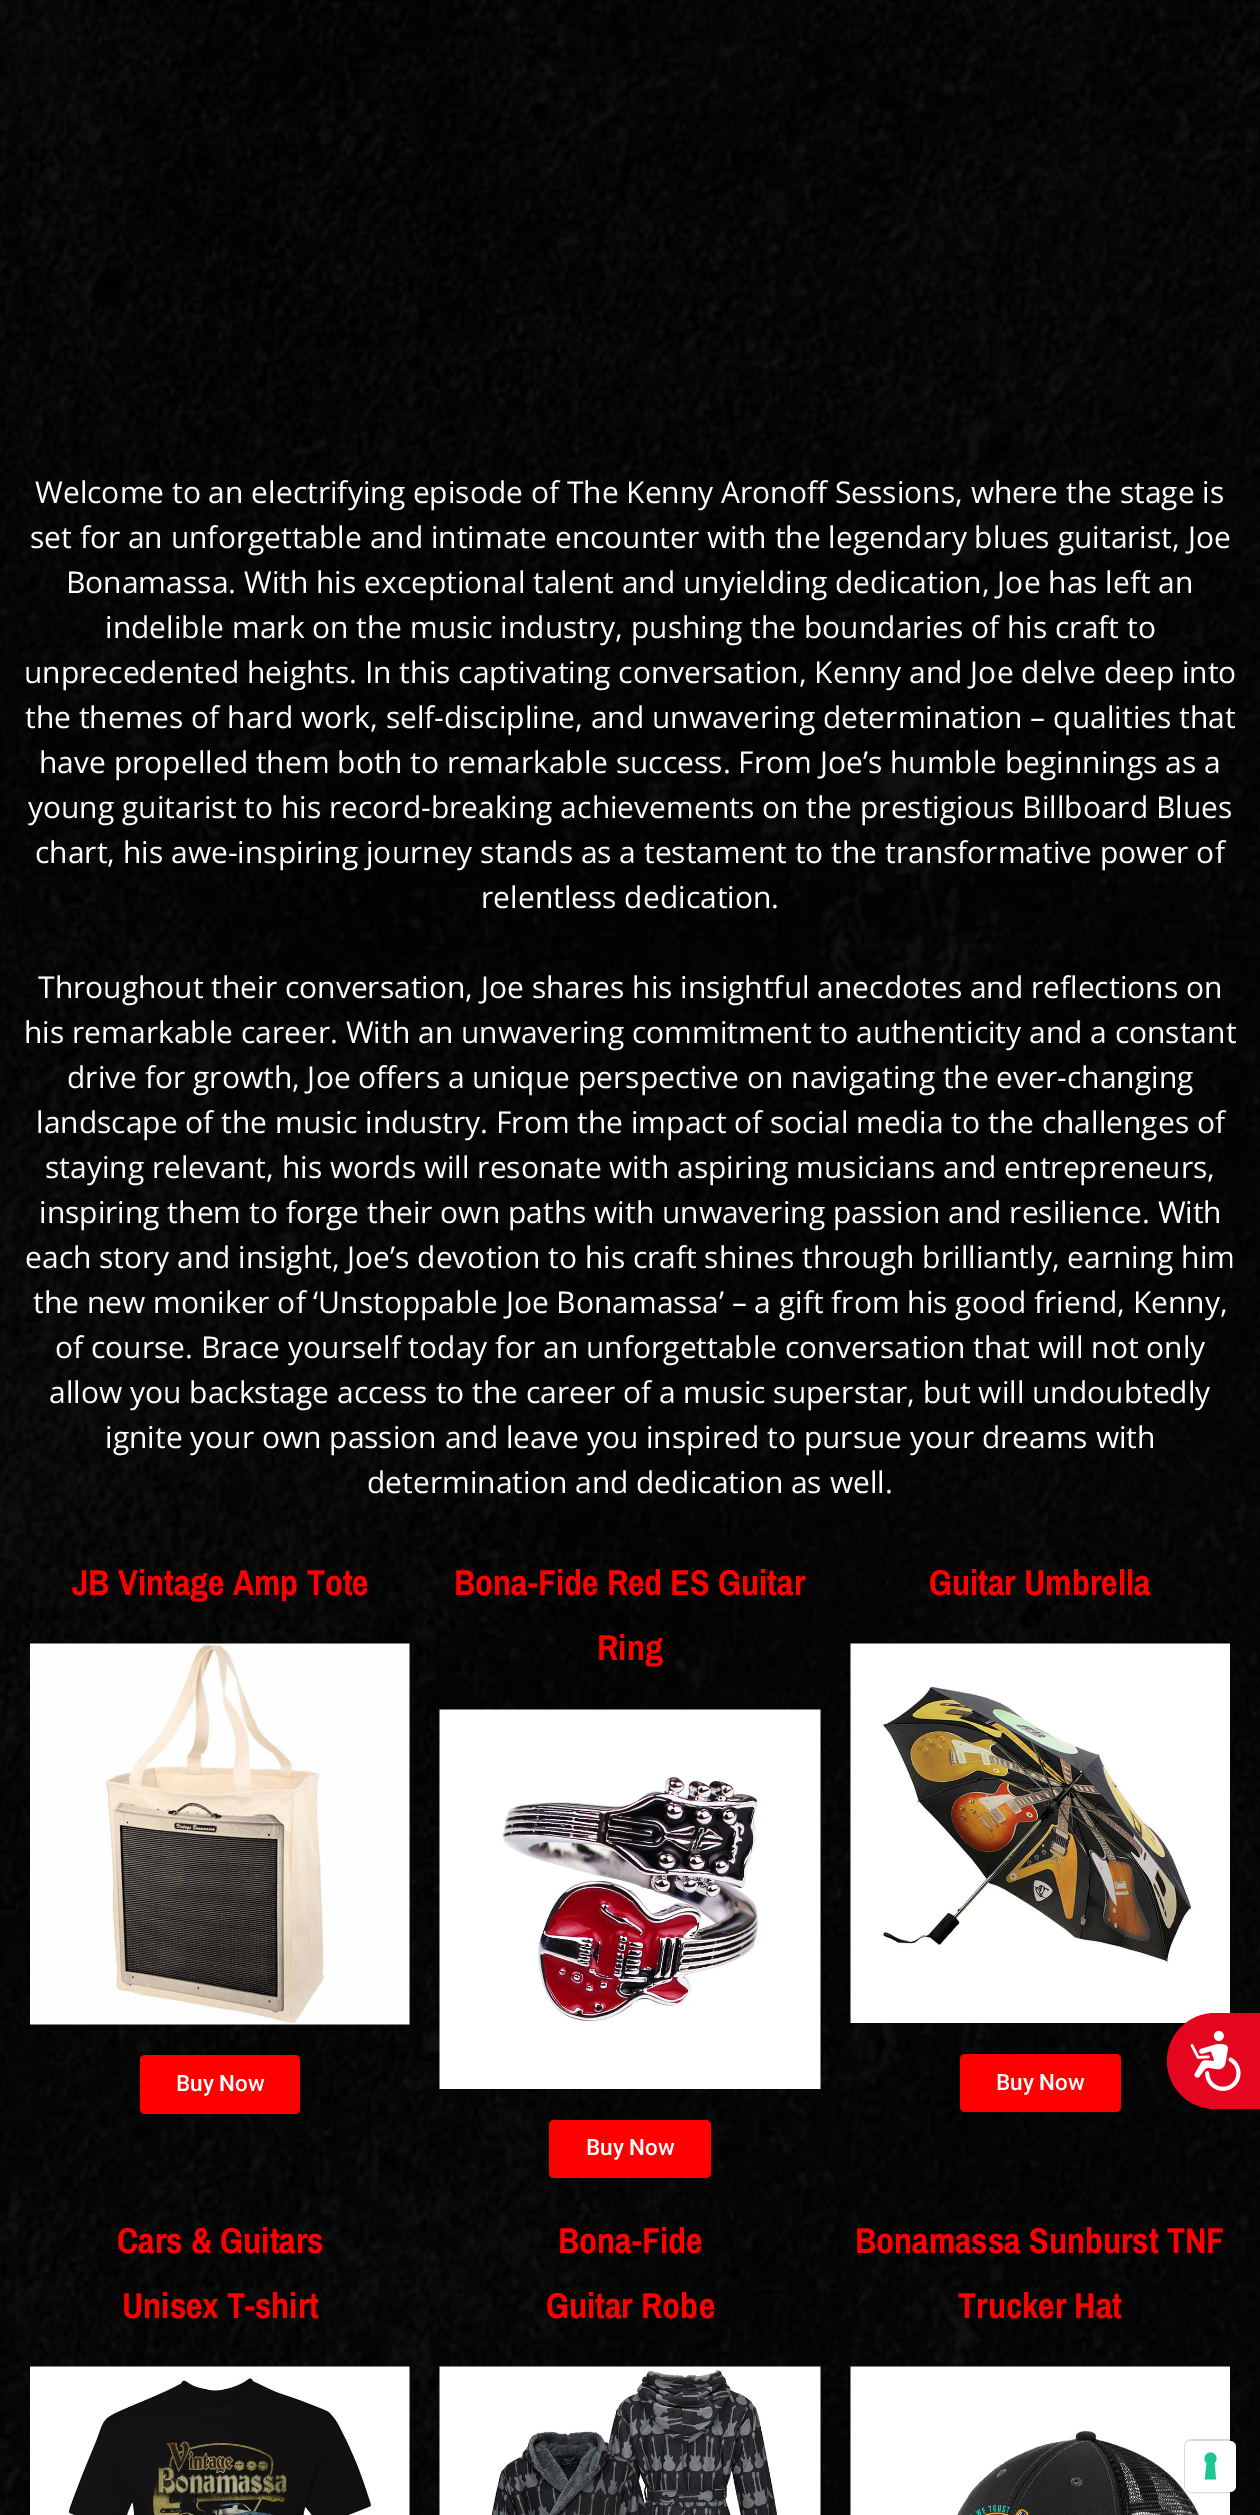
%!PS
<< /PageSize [1260 2515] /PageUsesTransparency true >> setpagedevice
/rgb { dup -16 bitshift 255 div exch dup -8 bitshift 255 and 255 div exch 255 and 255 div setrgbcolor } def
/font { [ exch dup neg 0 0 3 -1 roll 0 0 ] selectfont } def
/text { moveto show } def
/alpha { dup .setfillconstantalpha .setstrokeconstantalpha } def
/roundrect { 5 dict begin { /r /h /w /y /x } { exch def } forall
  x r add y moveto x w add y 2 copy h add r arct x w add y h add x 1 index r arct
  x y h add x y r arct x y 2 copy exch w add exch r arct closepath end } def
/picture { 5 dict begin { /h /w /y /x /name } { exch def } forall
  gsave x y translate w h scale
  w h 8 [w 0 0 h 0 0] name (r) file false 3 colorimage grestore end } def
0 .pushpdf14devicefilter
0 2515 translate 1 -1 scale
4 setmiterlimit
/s1 { /OpenSans-Regular 30 font 16#FFFFFF rgb } def
/s2 { /ArchivoNarrow-Bold 36 font 16#FF0000 rgb } def
/s3 { /Roboto-Medium 22.5 font 16#FFFFFF rgb } def
16#FFFFFF rgb
0 0 1260 2515 rectfill
(pic1.raw) 0 0 1260 2515 picture
s1
(Welcome to an electrifying episode of The Kenny Aronoff Sessions, where the stage is) 35 503 text
(set for an unforgettable and intimate encounter with the legendary blues guitarist, Joe) 30 548 text
(Bonamassa. With his exceptional talent and unyielding dedication, Joe has left an) 66 593 text
(indelible mark on the music industry, pushing the boundaries of his craft to) 105 638 text
(unprecedented heights. In this captivating conversation, Kenny and Joe delve deep into) 24 683 text
(the themes of hard work, self-discipline, and unwavering determination – qualities that) 25 728 text
(have propelled them both to remarkable success. From Joe’s humble beginnings as a) 39 773 text
(young guitarist to his record-breaking achievements on the prestigious Billboard Blues) 28 818 text
(chart, his awe-inspiring journey stands as a testament to the transformative power of) 35 863 text
(relentless dedication.) 481 908 text
(Throughout their conversation, Joe shares his insightful anecdotes and reflections on) 38 998 text
(his remarkable career. With an unwavering commitment to authenticity and a constant) 24 1043 text
(drive for growth, Joe offers a unique perspective on navigating the ever-changing) 67 1088 text
(landscape of the music industry. From the impact of social media to the challenges of) 36 1133 text
(staying relevant, his words will resonate with aspiring musicians and entrepreneurs,) 45 1178 text
(inspiring them to forge their own paths with unwavering passion and resilience. With) 39 1223 text
(each story and insight, Joe’s devotion to his craft shines through brilliantly, earning him) 25 1268 text
(the new moniker of ‘Unstoppable Joe Bonamassa’ – a gift from his good friend, Kenny,) 33 1313 text
(of course. Brace yourself today for an unforgettable conversation that will not only) 55 1358 text
(allow you backstage access to the career of a music superstar, but will undoubtedly) 49 1403 text
(ignite your own passion and leave you inspired to pursue your dreams with) 105 1448 text
(determination and dedication as well.) 367 1493 text
s2
(JB Vintage Amp Tote) 72 1595 text
(pic2.raw) 30 1643 380 382 picture
140 2055 160 59 5 roundrect fill
s3
(Buy Now) 176 2091 text
s2
(Bona-Fide Red ES Guitar) 454 1595 text
(Ring) 597 1660 text
(pic3.raw) 439 1709 382 380 picture
549 2120 162 58 5 roundrect fill
s3
(Buy Now) 586 2155 text
s2
(Guitar Umbrella) 929 1595 text
(pic4.raw) 850 1643 380 380 picture
960 2054 161 58 5 roundrect fill
s3
(Buy Now) 996 2090 text
s2
(Cars & Guitars) 117 2253 text
(Unisex T-shirt) 122 2318 text
(pic5.raw) 30 2366 380 149 picture
(Bona-Fide) 558 2253 text
(Guitar Robe) 546 2318 text
(pic6.raw) 439 2366 382 149 picture
(Bonamassa Sunburst TNF) 855 2253 text
(Trucker Hat) 958 2318 text
(pic7.raw) 850 2366 380 149 picture
16#E6051F rgb
1215 2013 moveto 1260 2013 lineto 1260 2109 lineto 1215 2109 lineto 1188.5 2109 1167 2087.5 1167 2061 curveto 1167 2034.5 1188.5 2013 1215 2013 curveto closepath fill
(pic8.raw) 1190 2031 51 60 picture
0.15 alpha
16#000000 rgb
2 setlinewidth
1185 2440 52 52 7 roundrect stroke
1 alpha
16#FFFFFF rgb
1185 2441 51 51 6 roundrect fill
16#1CC691 rgb
1210.5 2452.5 moveto 1216 2452.5 1218.5 2459.5 1214.5 2463 curveto 1216 2479.5 lineto 1205 2479.5 lineto 1206.5 2463 lineto 1202.5 2459.5 1205 2452.5 1210.5 2452.5 curveto closepath eofill
.poppdf14devicefilter showpage
